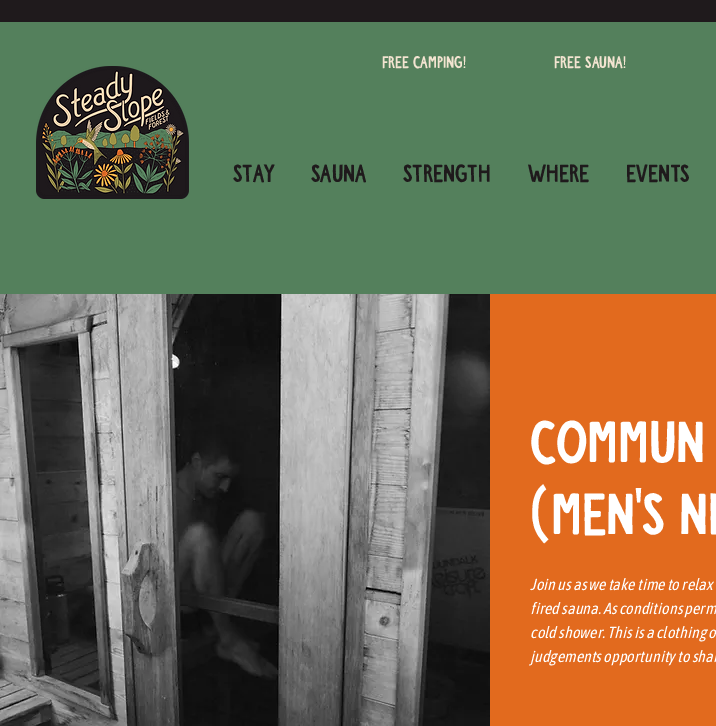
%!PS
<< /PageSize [716 726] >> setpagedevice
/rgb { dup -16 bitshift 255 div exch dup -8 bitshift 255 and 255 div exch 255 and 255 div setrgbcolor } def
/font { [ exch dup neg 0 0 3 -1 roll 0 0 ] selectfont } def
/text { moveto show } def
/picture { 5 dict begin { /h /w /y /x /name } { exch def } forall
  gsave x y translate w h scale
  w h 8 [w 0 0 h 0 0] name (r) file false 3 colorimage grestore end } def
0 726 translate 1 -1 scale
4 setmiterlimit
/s1 { /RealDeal-Regular 17 font 16#F3E4D1 rgb } def
/s2 { /RealDeal-Regular 25 font 16#1F1A1C rgb } def
/s3 { /RealDeal-Regular 60 font 16#FFFFFF rgb } def
/s4 { /AsapCondensed-Italic 16 font 16#FFFFFF rgb } def
16#54805C rgb
0 0 716 726 rectfill
16#1F1A1C rgb
0 0 716 22 rectfill
s1
(Free camping!) 382 68 text
(Free Sauna!) 554 68 text
(pic1.raw) 36 66 153 133 picture
s2
(STAY) 233 182 text
(SAUNA) 311 182 text
(STRENGTH) 403 182 text
(WHERE) 528 182 text
(Events) 626 182 text
(pic2.raw) 0 294 490 432 picture
16#E26A1E rgb
490 294 226 432 rectfill
s3
(Commun) 530 463 text
(\(Men's Ni) 530 535 text
s4
(Join us as we take time to relax) 530 590 text
(fired sauna. As conditions perm) 530 614 text
(cold shower. This is a clothing o) 530 638 text
(judgements opportunity to shar) 530 662 text
showpage
